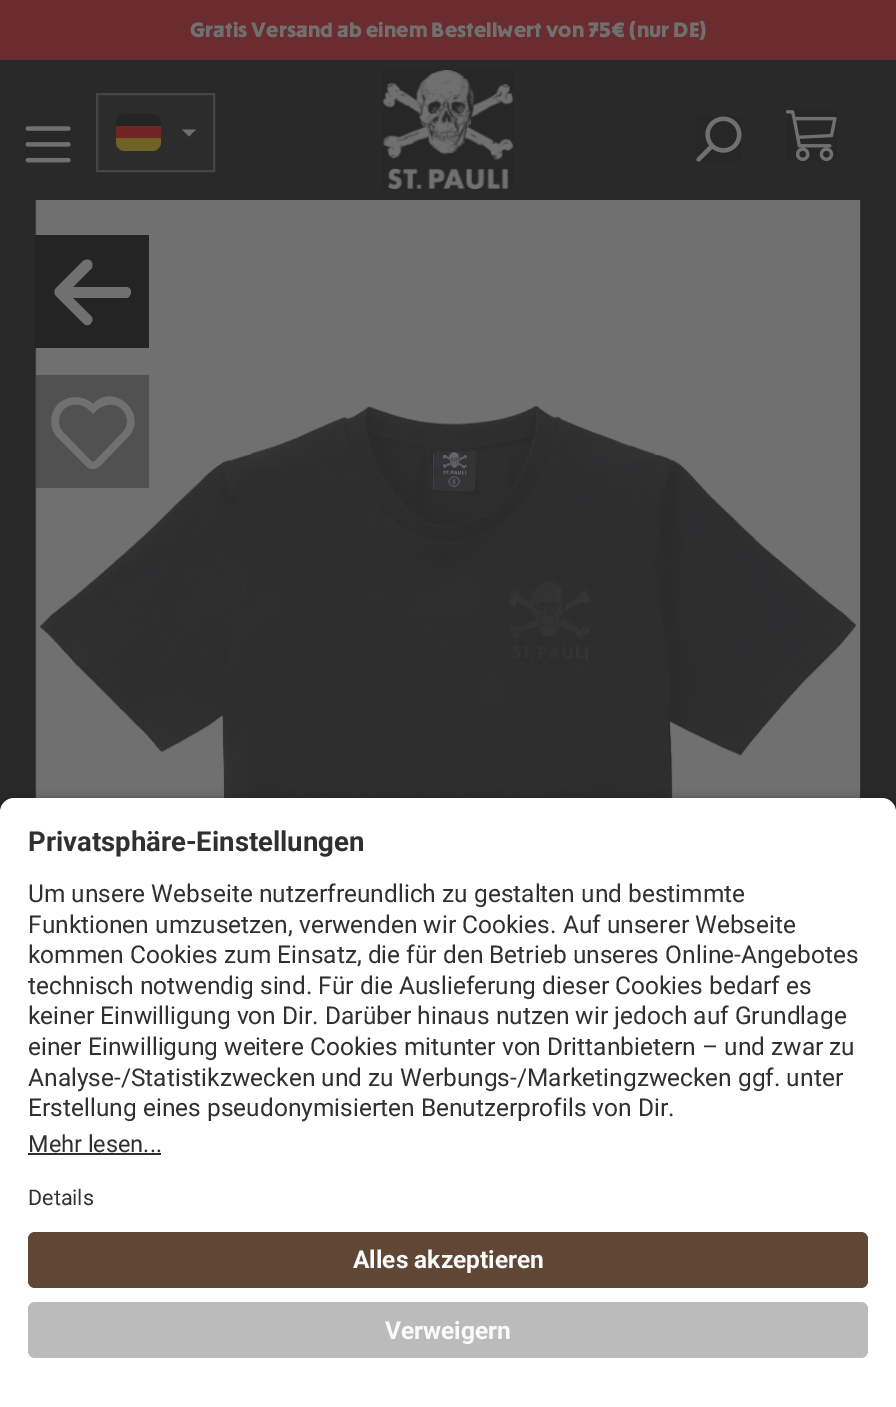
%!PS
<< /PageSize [896 1407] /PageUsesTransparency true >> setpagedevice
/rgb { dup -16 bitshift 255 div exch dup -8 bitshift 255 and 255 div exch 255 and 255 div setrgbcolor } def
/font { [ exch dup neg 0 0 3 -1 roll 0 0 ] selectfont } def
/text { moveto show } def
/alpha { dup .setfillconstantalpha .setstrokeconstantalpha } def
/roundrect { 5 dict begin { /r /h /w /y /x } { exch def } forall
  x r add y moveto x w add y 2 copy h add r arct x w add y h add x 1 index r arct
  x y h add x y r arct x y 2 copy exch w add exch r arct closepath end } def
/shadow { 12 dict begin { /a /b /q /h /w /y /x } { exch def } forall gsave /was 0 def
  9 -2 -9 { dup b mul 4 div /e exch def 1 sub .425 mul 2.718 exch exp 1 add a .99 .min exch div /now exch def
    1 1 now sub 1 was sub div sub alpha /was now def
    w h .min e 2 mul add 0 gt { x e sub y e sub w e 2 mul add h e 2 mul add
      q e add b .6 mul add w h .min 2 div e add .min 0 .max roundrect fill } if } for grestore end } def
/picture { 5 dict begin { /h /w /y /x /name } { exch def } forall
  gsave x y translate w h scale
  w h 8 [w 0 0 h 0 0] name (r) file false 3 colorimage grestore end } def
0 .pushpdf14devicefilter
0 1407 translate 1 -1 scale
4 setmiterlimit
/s1 { /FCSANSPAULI-Bold 19.25 font 16#707070 rgb } def
/s2 { /Roboto-Bold 27.5 font 16#303030 rgb } def
/s3 { /Roboto-Regular 24.5 font 16#303030 rgb } def
/s4 { /Roboto-Regular 23.5 font 16#303030 rgb } def
/s5 { /Roboto-Regular 21.5 font 16#303030 rgb } def
/s6 { /Roboto-Bold 24.5 font 16#FAFAFA rgb } def
16#292929 rgb
0 0 896 1407 rectfill
16#6B2C2F rgb
0 0 896 60 rectfill
s1
(Gratis Versand ab einem Bestellwert von 75€ \(nur DE\)) 190 37 text
(pic1.raw) 25 126 46 37 picture
16#2C2C2C rgb
97 94 moveto 214 94 lineto 214 171 lineto 97 171 lineto closepath gsave fill grestore
16#454545 rgb
2 setlinewidth
stroke
16#242424 rgb
125 114 moveto 152 114 lineto 157 114 161 118 161 123 curveto 161 126 lineto 116 126 lineto 116 123 lineto 116 118 120 114 125 114 curveto closepath fill
16#702424 rgb
116 126 45 12 rectfill
16#706124 rgb
116 138 moveto 161 138 lineto 161 142 lineto 161 147 157 151 152 151 curveto 125 151 lineto 120 151 116 147 116 142 curveto closepath fill
16#707070 rgb
182 129.5 moveto 196 129.5 lineto 189 136.5 lineto closepath fill
(pic2.raw) 382 70 132 120 picture
(pic3.raw) 696 116 46 46 picture
(pic4.raw) 786 110 51 51 picture
(pic5.raw) 35 200 826 598 picture
16#242424 rgb
35 235 114 113 rectfill
16#707070 rgb
56 288 moveto 54 291 54 294 56 296 curveto 83 323 lineto 86 326 89 326 91 323 curveto 93 321 93 318 91 316 curveto 73 298 lineto 126 298 lineto 129 298 131 295 131 292 curveto 131 289 129 287 126 287 curveto 73 287 lineto 91 269 lineto 93 267 93 263 91 261 curveto 89 259 86 259 83 261 curveto closepath fill
0.6 alpha
16#3C3C3C rgb
36 375 113 113 rectfill
1 alpha
16#707070 rgb
122 433 moveto 135 420 121 399 104 406 curveto 99 407 96 411 93 414 curveto 88 409 lineto 81 403 70 403 64 409 curveto 57 416 57 427 64 433 curveto 91 461 lineto 92 462 94 462 95 461 curveto closepath 127 438 moveto 100 466 lineto 96 470 90 470 86 466 curveto 58 438 lineto 49 429 49 414 58 404 curveto 68 395 83 395 93 404 curveto 115 381 150 416 127 438 curveto closepath eofill
16#000000 rgb
0 803 896 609 14 6 0.8 shadow
16#FFFFFF rgb
14 798 moveto 882 798 lineto 889.5 798 896 804.5 896 812 curveto 896 1187 lineto 0 1187 lineto 0 812 lineto 0 804.5 6.5 798 14 798 curveto closepath fill
s2
(Privatsphäre-Einstellungen) 28 851 text
s3
(Um unsere Webseite nutzerfreundlich zu gestalten und bestimmte) 28 902 text
(Funktionen umzusetzen, verwenden wir Cookies. Auf unserer Webseite) 28 933 text
(kommen Cookies zum Einsatz, die für den Betrieb unseres Online-Angebotes) 28 963 text
(technisch notwendig sind. Für die Auslieferung dieser Cookies bedarf es) 28 994 text
(keiner Einwilligung von Dir. Darüber hinaus nutzen wir jedoch auf Grundlage) 28 1024 text
(einer Einwilligung weitere Cookies mitunter von Drittanbietern – und zwar zu) 28 1055 text
(Analyse-/Statistikzwecken und zu Werbungs-/Marketingzwecken ggf. unter) 28 1086 text
(Erstellung eines pseudonymisierten Benutzerprofils von Dir.) 28 1116 text
s4
(Mehr lesen...) 28 1152 text
28 1153 133 2 rectfill
16#FFFFFF rgb
0 1187 896 220 rectfill
s5
(Details) 28 1205 text
16#604735 rgb
28 1232 840 56 7 roundrect fill
s6
(Alles akzeptieren) 353 1268 text
16#BBBBBB rgb
28 1302 840 56 7 roundrect fill
s6
(Verweigern) 385 1339 text
.poppdf14devicefilter showpage
